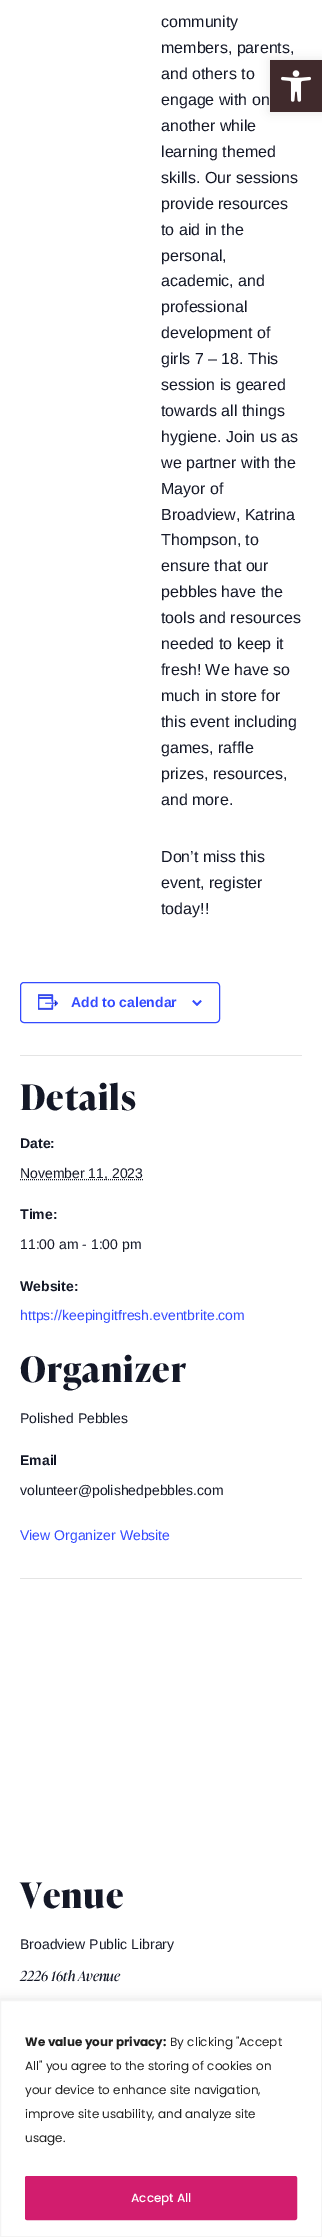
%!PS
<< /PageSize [322 2237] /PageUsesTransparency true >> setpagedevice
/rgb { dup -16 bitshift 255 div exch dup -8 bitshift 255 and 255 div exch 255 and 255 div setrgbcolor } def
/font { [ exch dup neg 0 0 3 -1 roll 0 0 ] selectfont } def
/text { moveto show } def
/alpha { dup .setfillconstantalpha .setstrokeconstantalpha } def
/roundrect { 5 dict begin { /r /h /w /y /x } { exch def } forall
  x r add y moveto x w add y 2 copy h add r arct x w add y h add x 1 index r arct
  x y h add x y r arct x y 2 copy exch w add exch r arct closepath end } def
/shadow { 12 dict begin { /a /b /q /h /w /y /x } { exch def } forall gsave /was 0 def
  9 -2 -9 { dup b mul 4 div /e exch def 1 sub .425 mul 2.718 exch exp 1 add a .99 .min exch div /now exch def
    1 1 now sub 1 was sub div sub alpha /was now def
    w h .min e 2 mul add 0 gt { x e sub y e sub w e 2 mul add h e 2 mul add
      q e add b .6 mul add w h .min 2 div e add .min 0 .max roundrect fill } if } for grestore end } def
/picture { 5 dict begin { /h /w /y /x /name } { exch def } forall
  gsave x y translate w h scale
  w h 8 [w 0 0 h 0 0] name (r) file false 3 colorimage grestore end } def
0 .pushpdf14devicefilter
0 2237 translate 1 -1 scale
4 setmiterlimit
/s1 { /LiberationSans-Regular 16 font 16#141827 rgb } def
/s2 { /LiberationSans-Bold 14 font 16#334AFF rgb } def
/s3 { /LiberationSans-Bold 14 font 16#141827 rgb } def
/s4 { /LiberationSans-Regular 14 font 16#141827 rgb } def
/s5 { /LiberationSans-Regular 14 font 16#334AFF rgb } def
/s6 { /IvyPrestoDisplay-Italic 14 font 16#141827 rgb } def
/s7 { /Poppins-Bold 12 font 16#212121 rgb } def
/s8 { /Poppins-Regular 12 font 16#212121 rgb } def
/s9 { /Poppins-Medium 12 font 16#FFFFFF rgb } def
16#FFFFFF rgb
0 0 322 2237 rectfill
s1
(community) 161 27 text
(members, parents,) 161 53 text
(and others to) 161 79 text
(engage with on) 161 105 text
(another while) 161 131 text
(learning themed) 161 157 text
(skills. Our sessions) 161 183 text
(provide resources) 161 209 text
(to aid in the) 161 235 text
(personal,) 161 261 text
(academic, and) 161 286 text
(professional) 161 312 text
(development of) 161 338 text
(girls 7 – 18. This) 161 364 text
(session is geared) 161 390 text
(towards all things) 161 416 text
(hygiene. Join us as) 161 442 text
(we partner with the) 161 468 text
(Mayor of) 161 494 text
(Broadview, Katrina) 161 520 text
(Thompson, to) 161 545 text
(ensure that our) 161 571 text
(pebbles have the) 161 597 text
(tools and resources) 161 623 text
(needed to keep it) 161 649 text
(fresh! We have so) 161 675 text
(much in store for) 161 701 text
(this event including) 161 727 text
(games, raffle) 161 753 text
(prizes, resources,) 161 779 text
(and more.) 161 805 text
(Don’t miss this) 161 862 text
(event, register) 161 888 text
(today!!) 161 914 text
16#334AFF rgb
20.5 982.5 199 40 3.5 roundrect stroke
(pic1.raw) 38 994 21 16 picture
s2
(Add to calendar) 71 1007 text
(pic2.raw) 192 1000 10 6 picture
16#E4E4E4 rgb
20 1055 282 1 rectfill
/IvyPrestoDisplay-Bold 35 font
16#141827 rgb
20 1110 moveto 1 0 (Details) ashow
s3
(Date:) 20 1148 text
[1 1] 0 setdash
20 1179.5 moveto 143 1179.5 lineto stroke
s4
(November 11, 2023) 20 1178 text
s3
(Time:) 20 1219 text
s4
(11:00 am - 1:00 pm) 20 1249 text
s3
(Website:) 20 1291 text
s5
(https://keepingitfresh.eventbrite.com) 20 1320 text
/IvyPrestoDisplay-Bold 35 font
16#141827 rgb
20 1382 moveto 1 0 (Organizer) ashow
s4
(Polished Pebbles) 20 1423 text
s3
(Email) 20 1465 text
s4
(volunteer@polishedpebbles.com) 20 1495 text
s5
(View Organizer Website) 20 1540 text
16#E4E4E4 rgb
20 1578 282 1 rectfill
/IvyPrestoDisplay-Bold 35 font
16#141827 rgb
20 1908 moveto 1 0 (Venue) ashow
s4
(Broadview Public Library) 20 1949 text
s6
(2226 16th Avenue) 20 1981 text
16#000000 rgb
270 60 52 52 0 5 0.1 shadow
16#402A2C rgb
270 60 52 52 rectfill
(pic3.raw) 281 70 30 32 picture
16#ACABAB rgb
0 1999 322 237 0 5 0.3 shadow
16#FFFFFF rgb
0.5 2000.5 moveto 321.5 2000.5 lineto 321.5 2236.5 lineto 0.5 2236.5 lineto closepath gsave fill grestore
16#F4F4F4 rgb
[] 0 setdash
stroke
s7
(We value your privacy:) 25 2046 text
s8
(By clicking "Accept) 170 2046 text
(All" you agree to the storing of cookies on) 25 2070 text
(your device to enhance site navigation,) 25 2094 text
(improve site usability, and analyze site) 25 2118 text
(usage.) 25 2142 text
16#D21D6E rgb
26 2177 270 42 1 roundrect gsave fill grestore
2 setlinewidth
stroke
s9
(Accept All) 131 2202 text
.poppdf14devicefilter showpage
